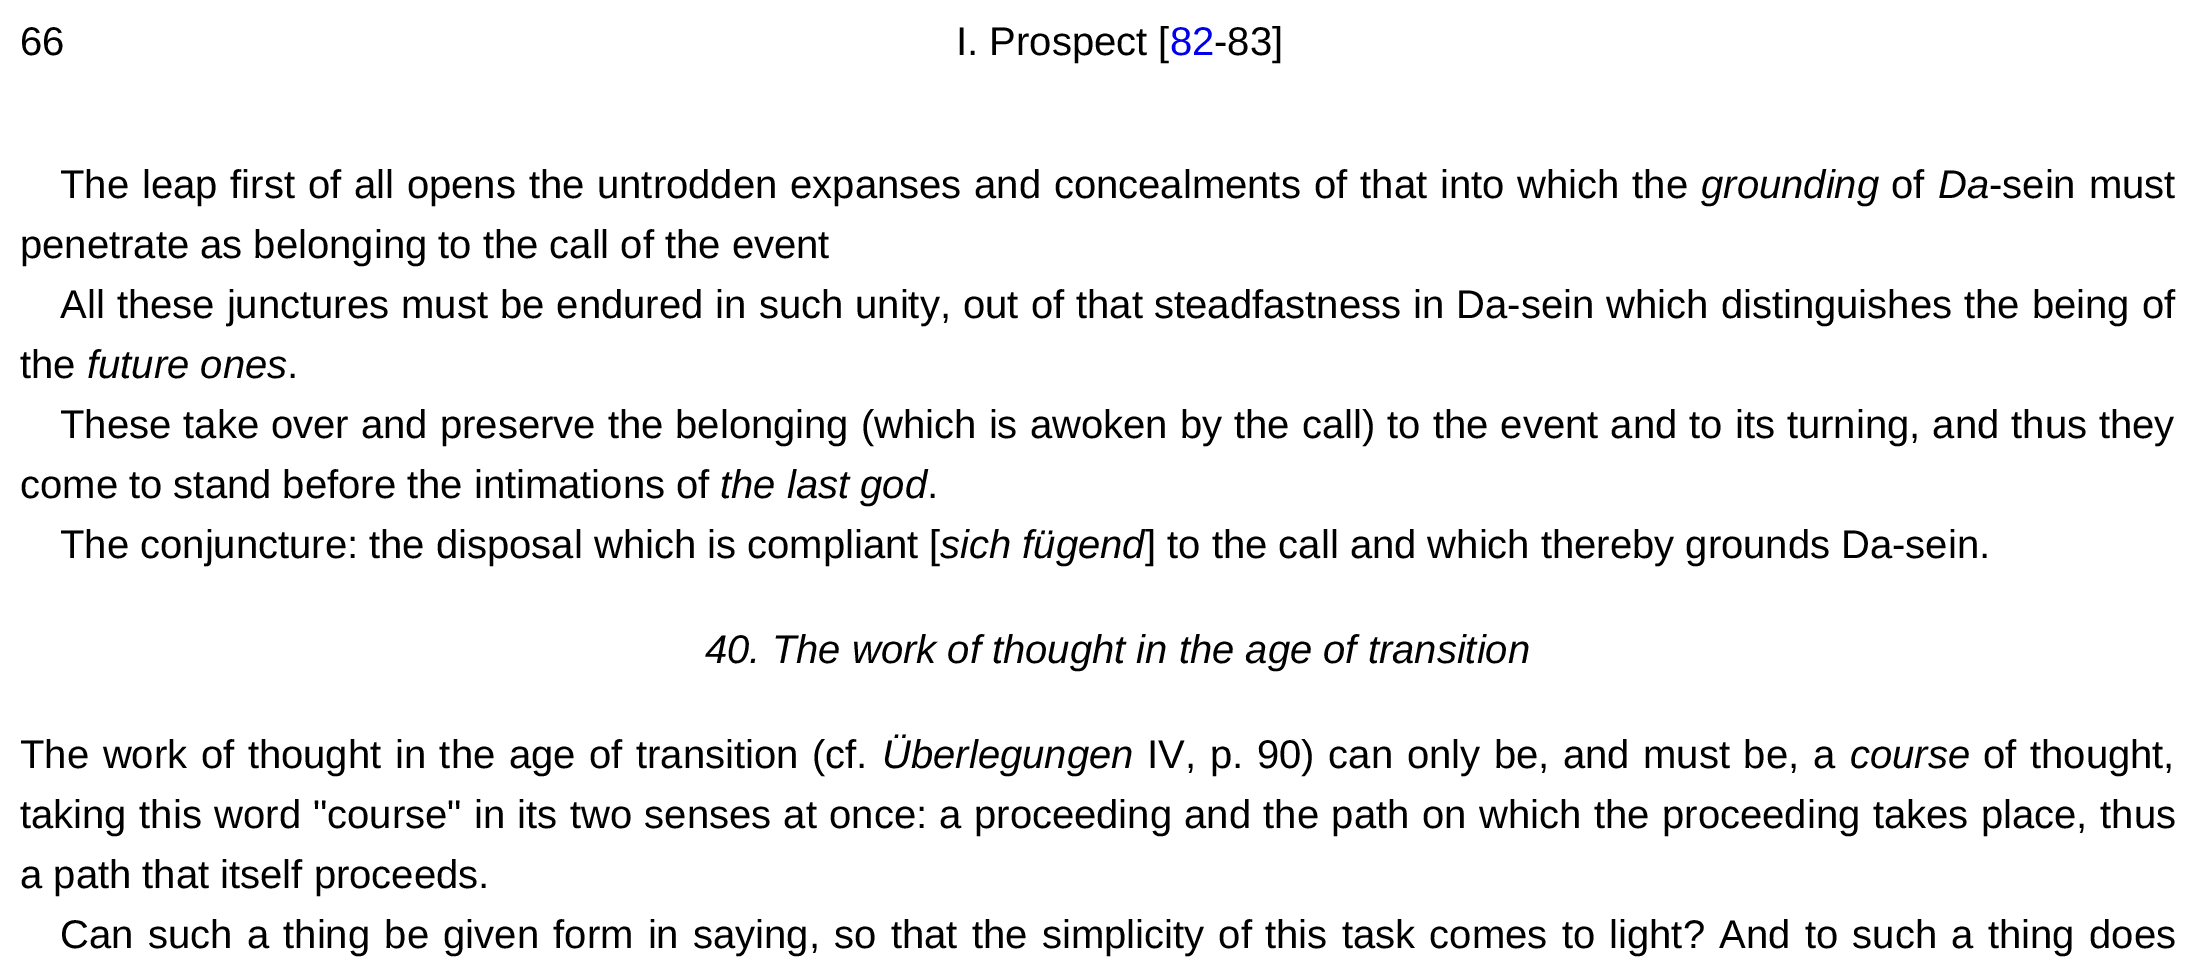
%!PS
<< /PageSize [2195 961] >> setpagedevice
/rgb { dup -16 bitshift 255 div exch dup -8 bitshift 255 and 255 div exch 255 and 255 div setrgbcolor } def
/font { [ exch dup neg 0 0 3 -1 roll 0 0 ] selectfont } def
/text { moveto show } def
0 961 translate 1 -1 scale
4 setmiterlimit
/s1 { /LiberationSans-Regular 40 font 16#000000 rgb } def
/s2 { /LiberationSans-Regular 40 font 16#0000EE rgb } def
/s3 { /LiberationSans-Italic 40 font 16#000000 rgb } def
16#FFFFFF rgb
0 0 2195 961 rectfill
s1
(66) 20 55 text
(I. Prospect [) 956 55 text
s2
(82) 1170 55 text
s1
(-83]) 1214 55 text
60 198 moveto 1.75 0 32 (The leap first of all opens the untrodden expanses and concealments) widthshow
1314 198 moveto 1.75 0 32 (of that into which the) widthshow
s3
(grounding) 1701 198 text
s1
(of) 1891 198 text
s3
(Da) 1938 198 text
/LiberationSans-Regular 40 font
1989 198 moveto 2 0 32 (-sein must) widthshow
(penetrate as belonging to the call of the event) 20 258 text
60 318 moveto 1 0 32 (All these junctures must be endured in such unity, out of that) widthshow
1154 318 moveto 1 0 32 (steadfastness in Da-sein which distinguishes the being of) widthshow
(the) 20 378 text
s3
(future ones) 87 378 text
s1
(.) 287 378 text
60 438 moveto 1 0 32 (These take over and preserve the belonging \(which is awoken by) widthshow
1234 438 moveto 1 0 32 (the call\) to the event and to its turning, and thus they) widthshow
(come to stand before the intimations of) 20 498 text
s3
(the last god) 720 498 text
s1
(.) 927 498 text
(The conjuncture: the disposal which is compliant [) 60 558 text
s3
(sich fügend) 940 558 text
s1
(] to the call and which thereby grounds Da-sein.) 1145 558 text
s3
(40. The work of thought in the age of transition) 705 663 text
/LiberationSans-Regular 40 font
20 768 moveto 2.5 0 32 (The work of thought in the age of transition \(cf.) widthshow
s3
(Überlegungen) 882 768 text
/LiberationSans-Regular 40 font
1147 768 moveto 2.5 0 32 (IV, p.) widthshow
1257 768 moveto 2.5 0 32 (90\) can only be, and must be, a) widthshow
s3
(course) 1850 768 text
/LiberationSans-Regular 40 font
1983 768 moveto 2.5 0 32 (of thought,) widthshow
20 828 moveto 1.5 0 32 (taking this word) widthshow
313 828 moveto 1.25 0 32 ("course" in its two senses at once: a proceeding and the path on) widthshow
1479 828 moveto 1.5 0 32 (which the proceeding takes place, thus) widthshow
(a path that itself proceeds.) 20 888 text
60 948 moveto 3.25 0 32 (Can such a thing be given form in saying, so that the simplicity of) widthshow
1265 948 moveto 3.25 0 32 (this task comes to light? And to such a thing does) widthshow
showpage
